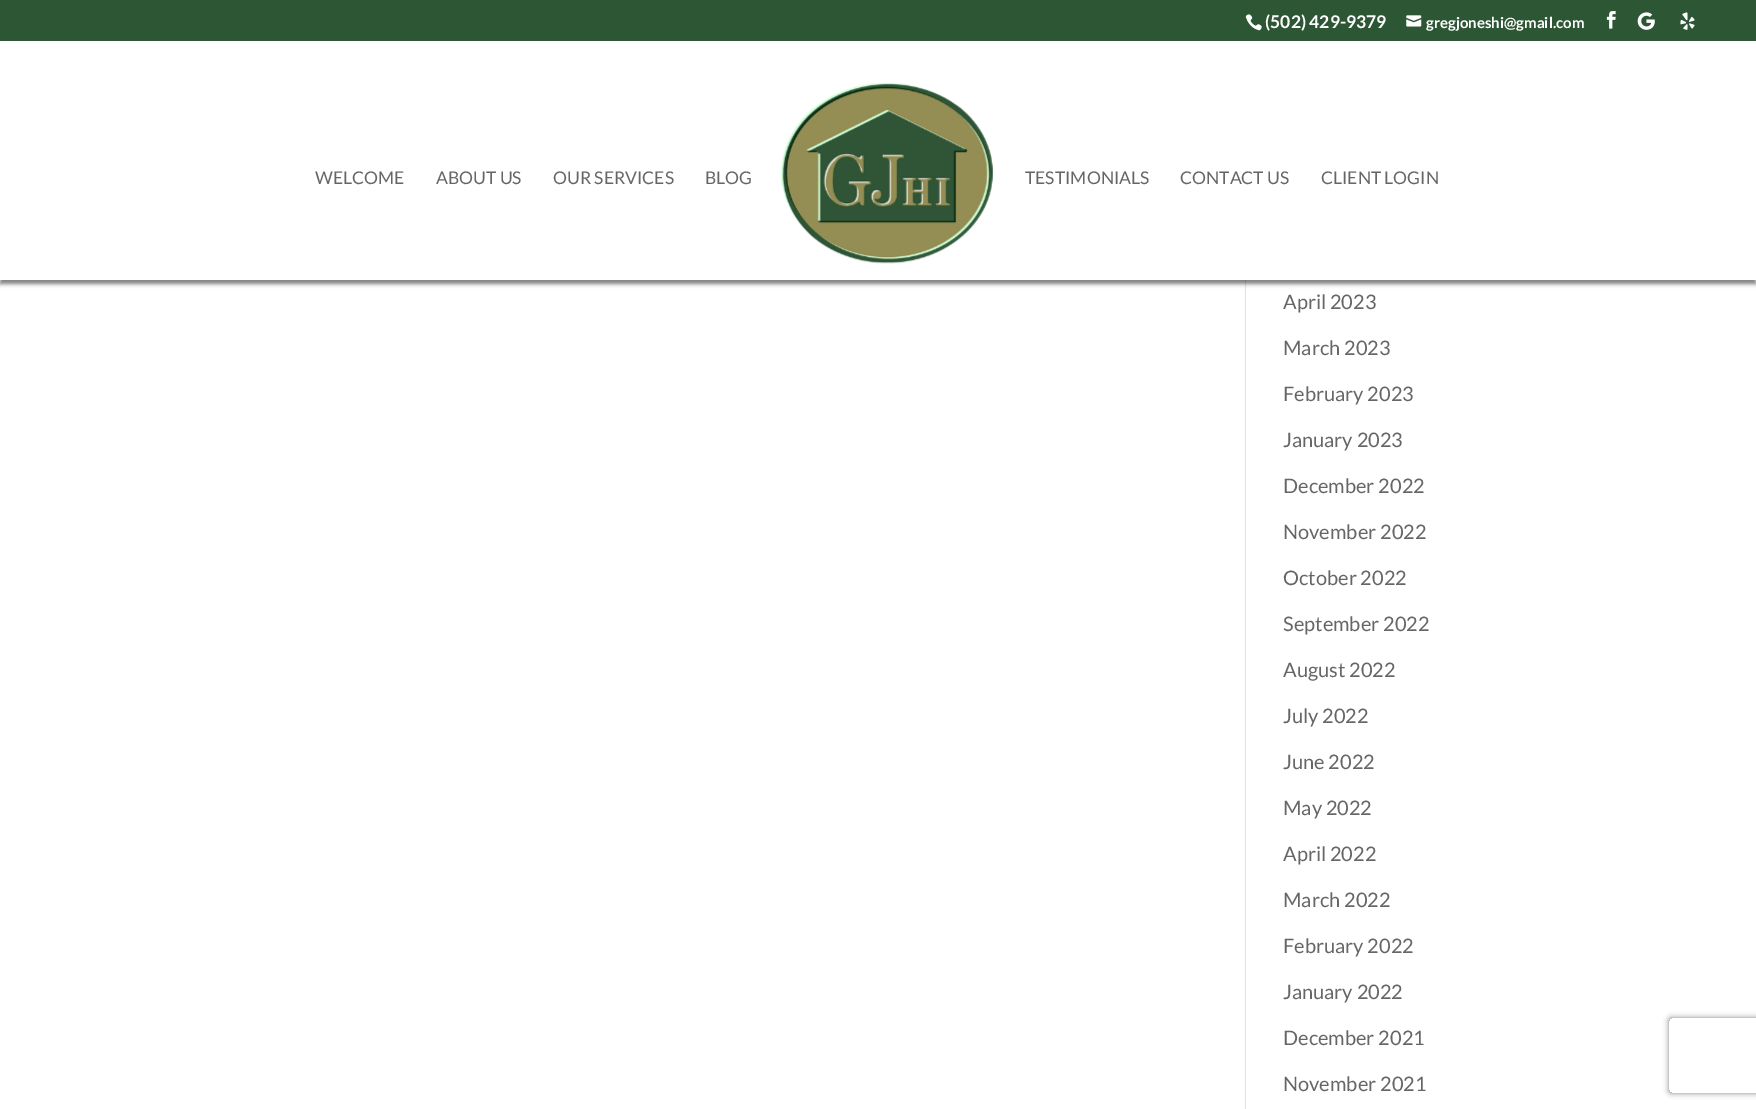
%!PS
<< /PageSize [1756 1109] /PageUsesTransparency true >> setpagedevice
/rgb { dup -16 bitshift 255 div exch dup -8 bitshift 255 and 255 div exch 255 and 255 div setrgbcolor } def
/font { [ exch dup neg 0 0 3 -1 roll 0 0 ] selectfont } def
/text { moveto show } def
/alpha { dup .setfillconstantalpha .setstrokeconstantalpha } def
/roundrect { 5 dict begin { /r /h /w /y /x } { exch def } forall
  x r add y moveto x w add y 2 copy h add r arct x w add y h add x 1 index r arct
  x y h add x y r arct x y 2 copy exch w add exch r arct closepath end } def
/shadow { 12 dict begin { /a /b /q /h /w /y /x } { exch def } forall gsave /was 0 def
  9 -2 -9 { dup b mul 4 div /e exch def 1 sub .425 mul 2.718 exch exp 1 add a .99 .min exch div /now exch def
    1 1 now sub 1 was sub div sub alpha /was now def
    w h .min e 2 mul add 0 gt { x e sub y e sub w e 2 mul add h e 2 mul add
      q e add b .6 mul add w h .min 2 div e add .min 0 .max roundrect fill } if } for grestore end } def
/picture { 5 dict begin { /h /w /y /x /name } { exch def } forall
  gsave x y translate w h scale
  w h 8 [w 0 0 h 0 0] name (r) file false 3 colorimage grestore end } def
0 .pushpdf14devicefilter
0 1109 translate 1 -1 scale
4 setmiterlimit
/s1 { /Lato-Bold 17.5 font 16#FFFFFF rgb } def
/s2 { /Lato-Bold 15 font 16#FFFFFF rgb } def
/s3 { /Lato-Regular 17.5 font 16#666666 rgb } def
/s4 { /Lato-Regular 20 font 16#666666 rgb } def
16#FFFFFF rgb
0 0 1756 1109 rectfill
16#E2E2E2 rgb
1245 280 1 829 rectfill
16#000000 rgb
0 45 1756 239 0 2 0.5 shadow
16#2C5634 rgb
0 0 1756 41 rectfill
(pic1.raw) 1245 14 17 17 picture
s1
(\(502\) 429-9379) 1265 28 text
(pic2.raw) 1406 15 16 12 picture
s2
(gregjoneshi@gmail.com) 1426 28 text
(pic3.raw) 1606 11 10 18 picture
(pic4.raw) 1637 12 18 18 picture
(pic5.raw) 1680 12 15 18 picture
0 41 1756 239 rectfill
s3
(WELCOME) 315 184 text
(ABOUT US) 436 184 text
(OUR SERVICES) 553 184 text
(BLOG) 705 184 text
(pic6.raw) 781 82 213 182 picture
(TESTIMONIALS) 1025 184 text
(CONTACT US) 1180 184 text
(CLIENT LOGIN) 1321 184 text
s4
(April 2023) 1283 309 text
(March 2023) 1283 355 text
(February 2023) 1283 401 text
(January 2023) 1283 447 text
(December 2022) 1283 493 text
(November 2022) 1283 539 text
(October 2022) 1283 585 text
(September 2022) 1283 631 text
(August 2022) 1283 677 text
(July 2022) 1283 723 text
(June 2022) 1283 769 text
(May 2022) 1283 815 text
(April 2022) 1283 861 text
(March 2022) 1283 907 text
(February 2022) 1283 953 text
(January 2022) 1283 999 text
(December 2021) 1283 1045 text
(November 2021) 1283 1091 text
gsave
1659 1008 moveto 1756 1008 lineto 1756 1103 lineto 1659 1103 lineto closepath 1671.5 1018 moveto 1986.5 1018 lineto 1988 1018 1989 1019 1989 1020.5 curveto 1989 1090.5 lineto 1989 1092 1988 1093 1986.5 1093 curveto 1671.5 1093 lineto 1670 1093 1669 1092 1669 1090.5 curveto 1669 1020.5 lineto 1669 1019 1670 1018 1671.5 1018 curveto closepath eoclip newpath
16#808080 rgb
1669 1018 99 75 2.5 3 1 shadow
grestore
.poppdf14devicefilter showpage
